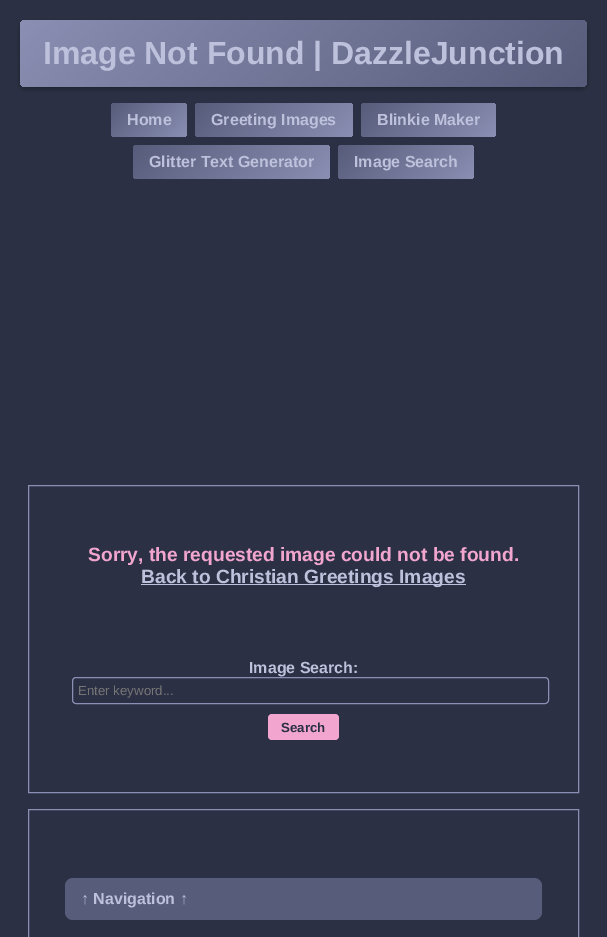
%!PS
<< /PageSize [607 937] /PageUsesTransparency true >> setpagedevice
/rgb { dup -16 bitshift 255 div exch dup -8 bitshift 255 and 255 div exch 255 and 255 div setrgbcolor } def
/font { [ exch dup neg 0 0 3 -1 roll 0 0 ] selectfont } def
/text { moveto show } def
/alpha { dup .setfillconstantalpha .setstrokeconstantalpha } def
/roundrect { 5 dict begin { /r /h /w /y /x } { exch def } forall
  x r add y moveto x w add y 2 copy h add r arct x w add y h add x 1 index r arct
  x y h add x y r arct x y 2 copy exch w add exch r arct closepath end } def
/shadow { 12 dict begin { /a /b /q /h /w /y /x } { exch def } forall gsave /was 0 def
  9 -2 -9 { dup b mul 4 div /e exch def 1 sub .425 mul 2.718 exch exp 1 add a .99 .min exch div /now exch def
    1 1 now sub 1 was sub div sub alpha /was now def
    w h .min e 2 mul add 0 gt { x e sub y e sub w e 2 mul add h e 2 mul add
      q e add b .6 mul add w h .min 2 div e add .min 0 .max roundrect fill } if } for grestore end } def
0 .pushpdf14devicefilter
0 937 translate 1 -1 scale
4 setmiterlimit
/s1 { /LiberationSans-Bold 32 font 16#BDC1DB rgb } def
/s2 { /LiberationSans-Bold 16 font 16#BDC1DB rgb } def
/s3 { /LiberationSans-Bold 19.2 font 16#F2A6CF rgb } def
/s4 { /LiberationSans-Bold 19.2 font 16#BDC1DB rgb } def
/s5 { /LiberationSans-Regular 13.25 font 16#757575 rgb } def
/s6 { /LiberationSans-Bold 13.25 font 16#2B3044 rgb } def
16#2B3044 rgb
0 0 607 937 rectfill
16#000000 rgb
20 22 567 67 6 2.5 0.3 shadow
gsave 20 20 567 67 6 roundrect clip newpath
<< /ShadingType 2 /ColorSpace /DeviceRGB /Coords [145 -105 462 212] /Extend [true true] /Function << /FunctionType 2 /Domain [0 1] /C0 [0.541 0.561 0.702] /C1 [0.345 0.361 0.482] /N 1 >> >> shfill grestore
s1
(Image Not Found | DazzleJunction) 43 64 text
gsave 111 103 76 34 4 roundrect clip newpath
<< /ShadingType 2 /ColorSpace /DeviceRGB /Coords [122 93 177 148] /Extend [true true] /Function << /FunctionType 2 /Domain [0 1] /C0 [0.345 0.361 0.482] /C1 [0.541 0.561 0.702] /N 1 >> >> shfill grestore
s2
(Home) 127 125 text
gsave 195 103 158 34 4 roundrect clip newpath
<< /ShadingType 2 /ColorSpace /DeviceRGB /Coords [226 72 322 168] /Extend [true true] /Function << /FunctionType 2 /Domain [0 1] /C0 [0.345 0.361 0.482] /C1 [0.541 0.561 0.702] /N 1 >> >> shfill grestore
(Greeting Images) 211 125 text
gsave 361 103 135 34 4 roundrect clip newpath
<< /ShadingType 2 /ColorSpace /DeviceRGB /Coords [386 78 471 162] /Extend [true true] /Function << /FunctionType 2 /Domain [0 1] /C0 [0.345 0.361 0.482] /C1 [0.541 0.561 0.702] /N 1 >> >> shfill grestore
(Blinkie Maker) 377 125 text
gsave 133 145 197 34 4 roundrect clip newpath
<< /ShadingType 2 /ColorSpace /DeviceRGB /Coords [174 104 289 220] /Extend [true true] /Function << /FunctionType 2 /Domain [0 1] /C0 [0.345 0.361 0.482] /C1 [0.541 0.561 0.702] /N 1 >> >> shfill grestore
(Glitter Text Generator) 149 167 text
gsave 338 145 136 34 4 roundrect clip newpath
<< /ShadingType 2 /ColorSpace /DeviceRGB /Coords [364 120 449 205] /Extend [true true] /Function << /FunctionType 2 /Domain [0 1] /C0 [0.345 0.361 0.482] /C1 [0.541 0.561 0.702] /N 1 >> >> shfill grestore
(Image Search) 354 167 text
16#8A8FB3 rgb
28.5 485.5 550 307 rectstroke
s3
(Sorry, the requested image could not be found.) 88 561 text
16#BDC1DB rgb
141 584 325 1 rectfill
(Back to Christian Greetings Images) 141 583 text
s2
(Image Search:) 249 673 text
16#8A8FB3 rgb
72.5 677.5 476 26 3.5 roundrect stroke
s5
(Enter keyword...) 78 695 text
16#F2A6CF rgb
268 714 71 26 4 roundrect fill
s6
(Search) 281 732 text
16#8A8FB3 rgb
28.5 809.5 550 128 rectstroke
16#585C7B rgb
65 878 477 42 8 roundrect fill
s2
(↑ Navigation ↑) 81 904 text
.poppdf14devicefilter showpage
